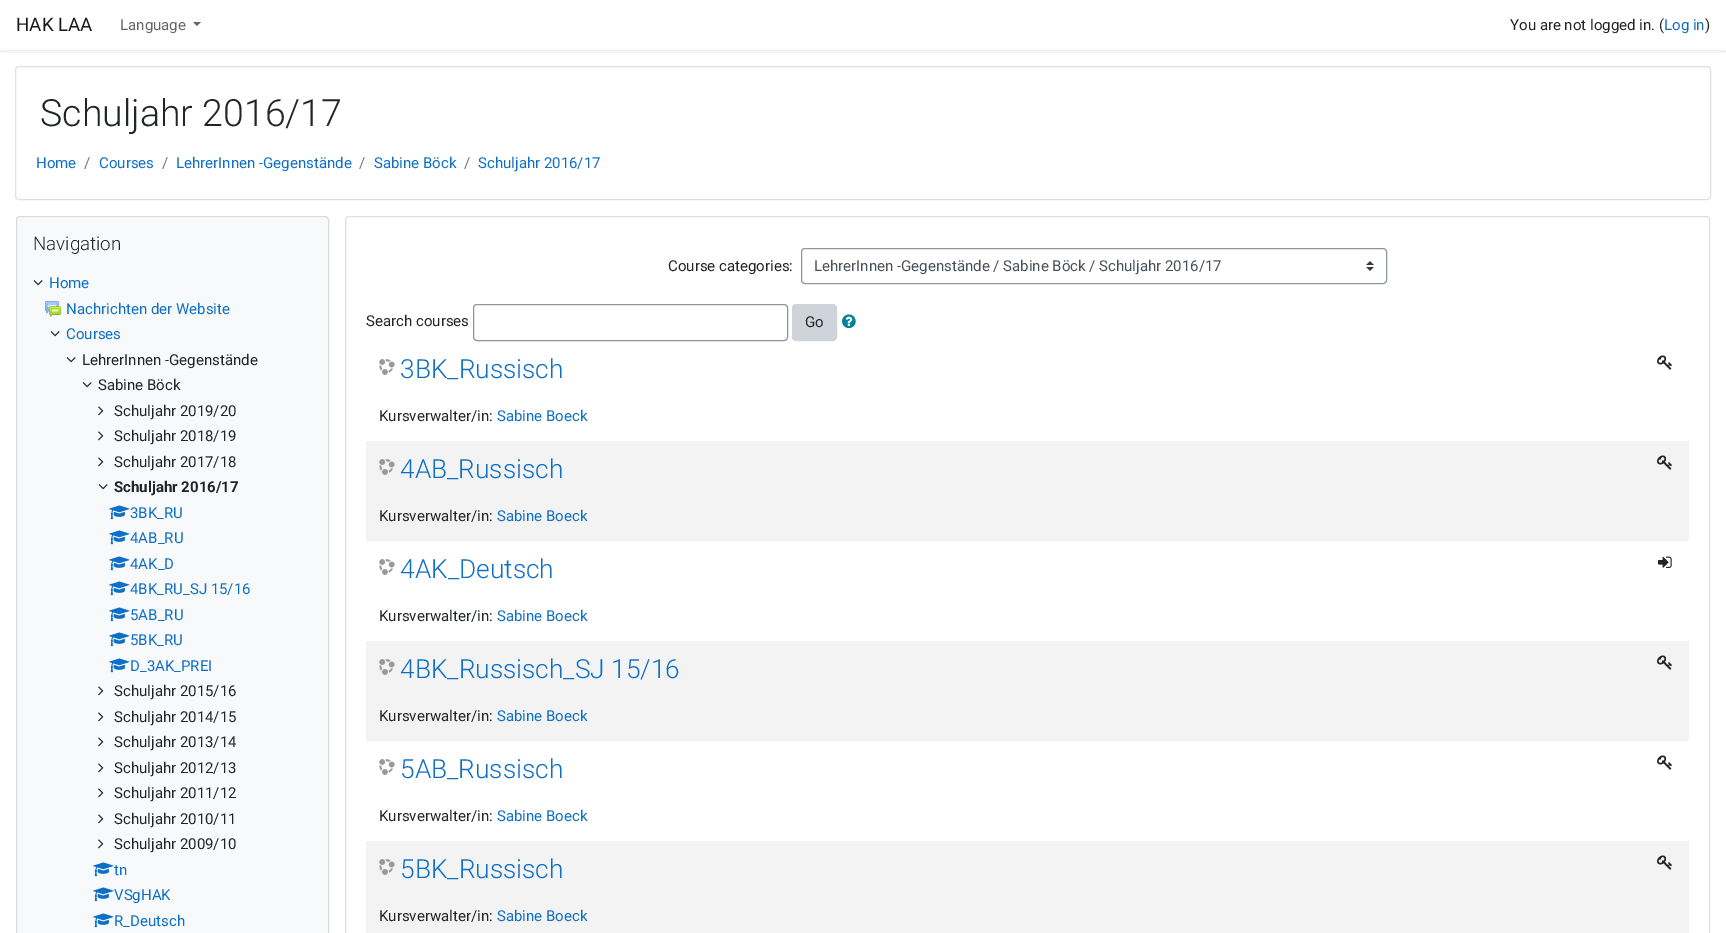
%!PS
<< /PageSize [1726 933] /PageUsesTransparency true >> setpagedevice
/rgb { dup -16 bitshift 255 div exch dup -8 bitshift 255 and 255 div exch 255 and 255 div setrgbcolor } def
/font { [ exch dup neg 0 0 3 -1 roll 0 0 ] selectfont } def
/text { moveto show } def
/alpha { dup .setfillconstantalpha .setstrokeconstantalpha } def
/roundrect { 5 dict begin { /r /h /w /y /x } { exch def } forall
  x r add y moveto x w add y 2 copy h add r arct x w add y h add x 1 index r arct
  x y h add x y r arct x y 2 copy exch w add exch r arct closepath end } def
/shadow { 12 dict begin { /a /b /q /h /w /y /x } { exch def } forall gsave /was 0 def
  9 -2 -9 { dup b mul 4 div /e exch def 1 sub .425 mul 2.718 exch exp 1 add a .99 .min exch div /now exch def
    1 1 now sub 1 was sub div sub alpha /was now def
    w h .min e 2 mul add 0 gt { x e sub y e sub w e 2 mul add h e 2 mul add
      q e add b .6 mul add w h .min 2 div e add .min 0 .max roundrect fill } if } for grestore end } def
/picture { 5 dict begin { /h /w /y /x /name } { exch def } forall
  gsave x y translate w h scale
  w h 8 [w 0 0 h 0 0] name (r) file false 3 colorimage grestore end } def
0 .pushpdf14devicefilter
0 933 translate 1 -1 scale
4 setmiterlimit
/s1 { /Roboto-Regular 18.75 font 16#1A1A1A rgb } def
/s2 { /Roboto-Regular 15 font 16#666666 rgb } def
/s3 { /Roboto-Regular 15 font 16#212529 rgb } def
/s4 { /Roboto-Regular 15 font 16#0F6FC5 rgb } def
/s5 { /Roboto-Light 37.5 font 16#212529 rgb } def
/s6 { /Roboto-Regular 15 font 16#6C757D rgb } def
/s7 { /Roboto-Light 18.75 font 16#212529 rgb } def
/s8 { /Roboto-Bold 15 font 16#212529 rgb } def
/s9 { /Roboto-Regular 15 font 16#495057 rgb } def
/s10 { /Roboto-Light 26.25 font 16#0F6FC5 rgb } def
16#FFFFFF rgb
0 0 1726 933 rectfill
gsave
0 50 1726 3 rectclip
16#000000 rgb
0 2 1726 50 0 2 0.08 shadow
grestore
s1
(HAK LAA) 16 31 text
s2
(Language) 120 30 text
193 22 moveto 201 22 lineto 197 26 lineto closepath fill
s3
(You are not logged in. \() 1510 30 text
s4
(Log in) 1664 30 text
s3
(\)) 1705 30 text
16#DFDFDF rgb
15.5 66.5 1695 133 3.5 roundrect stroke
s5
(Schuljahr 2016/17) 40 126 text
s4
(Home) 36 168 text
s6
(/) 84 168 text
s4
(Courses) 99 168 text
s6
(/) 162 168 text
s4
(LehrerInnen -Gegenstände) 176 168 text
s6
(/) 359 168 text
s4
(Sabine Böck) 374 168 text
s6
(/) 464 168 text
s4
(Schuljahr 2016/17) 478 168 text
16#F8F9FA rgb
16.5 216.5 312 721 3.5 roundrect gsave fill grestore
16#D9DADB rgb
stroke
s7
(Navigation) 33 250 text
(pic1.raw) 33 280 10 6 picture
s4
(Home) 49 288 text
(pic2.raw) 45 301 16 16 picture
(Nachrichten der Website) 66 314 text
(pic1.raw) 50 331 10 6 picture
(Courses) 66 339 text
(pic1.raw) 66 357 10 6 picture
s3
(LehrerInnen -Gegenstände) 82 365 text
(pic1.raw) 82 382 10 6 picture
(Sabine Böck) 98 390 text
(pic3.raw) 98 406 6 10 picture
(Schuljahr 2019/20) 114 416 text
(pic3.raw) 98 431 6 10 picture
(Schuljahr 2018/19) 114 441 text
(pic3.raw) 98 457 6 10 picture
(Schuljahr 2017/18) 114 467 text
(pic1.raw) 98 484 10 6 picture
s8
(Schuljahr 2016/17) 114 492 text
(pic4.raw) 109 505 21 15 picture
s4
(3BK_RU) 130 518 text
(pic4.raw) 109 530 21 15 picture
(4AB_RU) 130 543 text
(pic4.raw) 109 556 21 15 picture
(4AK_D) 130 569 text
(pic4.raw) 109 581 21 15 picture
(4BK_RU_SJ 15/16) 130 594 text
(pic4.raw) 109 607 21 15 picture
(5AB_RU) 130 620 text
(pic4.raw) 109 632 21 15 picture
(5BK_RU) 130 645 text
(pic4.raw) 109 658 21 15 picture
(D_3AK_PREI) 130 671 text
(pic3.raw) 98 686 6 10 picture
s3
(Schuljahr 2015/16) 114 696 text
(pic3.raw) 98 712 6 10 picture
(Schuljahr 2014/15) 114 722 text
(pic3.raw) 98 737 6 10 picture
(Schuljahr 2013/14) 114 747 text
(pic3.raw) 98 763 6 10 picture
(Schuljahr 2012/13) 114 773 text
(pic3.raw) 98 788 6 10 picture
(Schuljahr 2011/12) 114 798 text
(pic3.raw) 98 814 6 10 picture
(Schuljahr 2010/11) 114 824 text
(pic3.raw) 98 839 6 10 picture
(Schuljahr 2009/10) 114 849 text
(pic4.raw) 93 862 21 15 picture
s4
(tn) 114 875 text
(pic4.raw) 93 887 21 15 picture
(VSgHAK) 114 900 text
(pic4.raw) 93 913 21 15 picture
(R_Deutsch) 114 926 text
16#DFDFDF rgb
345.5 216.5 1364 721 3.5 roundrect stroke
s3
(Course categories:) 668 271 text
(pic5.raw) 1366 261 8 10 picture
16#8F959E rgb
801.5 248.5 585 35 3.5 roundrect stroke
s9
(LehrerInnen -Gegenstände / Sabine Böck / Schuljahr 2016/17) 814 271 text
s3
(Search courses) 366 326 text
16#8F959E rgb
473.5 304.5 314 36 3.5 roundrect stroke
16#CED4DA rgb
792.5 304.5 44 36 3.5 roundrect gsave fill grestore
stroke
s3
(Go) 805 327 text
(pic6.raw) 842 314 14 15 picture
(pic7.raw) 379 359 16 16 picture
s10
(3BK_Russisch) 400 378 text
(pic8.raw) 1657 355 15 15 picture
s3
(Kursverwalter/in:) 379 421 text
s4
(Sabine Boeck) 497 421 text
16#F3F3F3 rgb
366 441 1323 100 rectfill
(pic9.raw) 379 459 16 16 picture
s10
(4AB_Russisch) 400 478 text
(pic10.raw) 1657 455 15 15 picture
s3
(Kursverwalter/in:) 379 521 text
s4
(Sabine Boeck) 497 521 text
(pic7.raw) 379 559 16 16 picture
s10
(4AK_Deutsch) 400 578 text
(pic11.raw) 1658 556 14 12 picture
s3
(Kursverwalter/in:) 379 621 text
s4
(Sabine Boeck) 497 621 text
16#F3F3F3 rgb
366 641 1323 100 rectfill
(pic9.raw) 379 659 16 16 picture
s10
(4BK_Russisch_SJ 15/16) 400 678 text
(pic10.raw) 1657 655 15 15 picture
s3
(Kursverwalter/in:) 379 721 text
s4
(Sabine Boeck) 497 721 text
(pic12.raw) 379 759 16 16 picture
s10
(5AB_Russisch) 400 778 text
(pic8.raw) 1657 755 15 15 picture
s3
(Kursverwalter/in:) 379 821 text
s4
(Sabine Boeck) 497 821 text
16#F3F3F3 rgb
366 841 1323 92 rectfill
(pic9.raw) 379 859 16 16 picture
s10
(5BK_Russisch) 400 878 text
(pic10.raw) 1657 855 15 15 picture
s3
(Kursverwalter/in:) 379 921 text
s4
(Sabine Boeck) 497 921 text
.poppdf14devicefilter showpage
